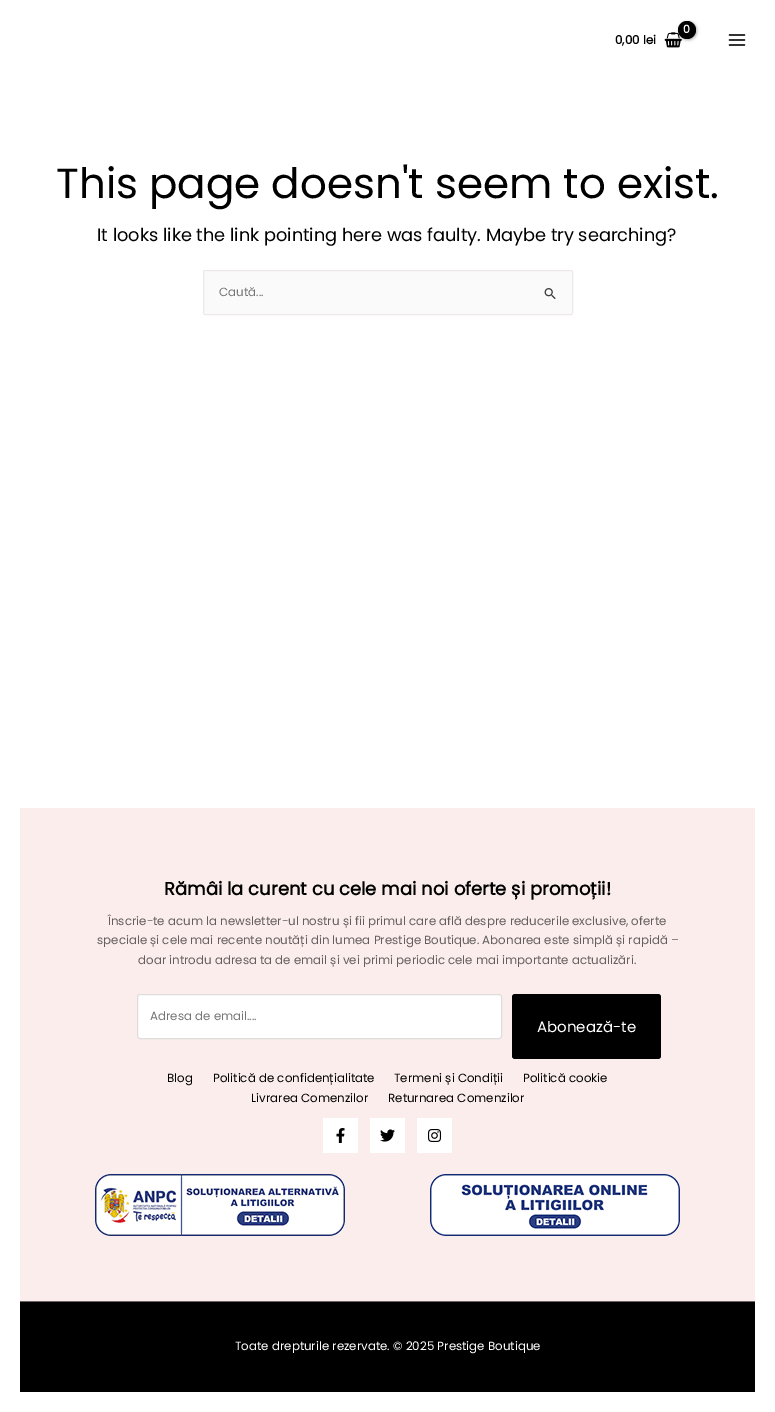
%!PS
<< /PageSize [775 1412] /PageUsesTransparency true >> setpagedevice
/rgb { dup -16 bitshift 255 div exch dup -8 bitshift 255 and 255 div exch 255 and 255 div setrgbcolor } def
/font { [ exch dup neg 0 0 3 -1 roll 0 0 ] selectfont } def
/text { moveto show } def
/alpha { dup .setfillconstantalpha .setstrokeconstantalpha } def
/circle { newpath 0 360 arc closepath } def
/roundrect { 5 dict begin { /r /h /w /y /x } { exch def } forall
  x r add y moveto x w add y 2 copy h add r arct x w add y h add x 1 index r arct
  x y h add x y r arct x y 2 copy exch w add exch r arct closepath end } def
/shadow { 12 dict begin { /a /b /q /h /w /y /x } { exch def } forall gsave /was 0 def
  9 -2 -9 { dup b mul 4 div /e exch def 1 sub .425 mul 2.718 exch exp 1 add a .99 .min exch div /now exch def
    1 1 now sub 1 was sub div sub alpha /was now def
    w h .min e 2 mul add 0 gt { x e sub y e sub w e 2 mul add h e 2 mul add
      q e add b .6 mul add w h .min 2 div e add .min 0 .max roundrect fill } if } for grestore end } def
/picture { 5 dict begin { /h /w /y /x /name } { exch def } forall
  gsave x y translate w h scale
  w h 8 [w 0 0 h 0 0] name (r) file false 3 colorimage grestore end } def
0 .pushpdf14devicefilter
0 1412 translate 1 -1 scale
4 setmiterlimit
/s1 { /Poppins-Bold 11 font 16#FFFFFF rgb } def
/s2 { /Poppins-Bold 11.85 font 16#000000 rgb } def
/s3 { /Poppins-Regular 42 font 16#000000 rgb } def
/s4 { /Poppins-Regular 17.75 font 16#000000 rgb } def
/s5 { /Poppins-Regular 11.85 font 16#757575 rgb } def
/s6 { /Poppins-Bold 18 font 16#000000 rgb } def
/s7 { /Poppins-Regular 11.85 font 16#645F5E rgb } def
/s8 { /Poppins-Regular 15 font 16#FFFFFF rgb } def
/s9 { /Poppins-Regular 11.85 font 16#000000 rgb } def
/s10 { /Poppins-Regular 11.85 font 16#FFFFFF rgb } def
16#FFFFFF rgb
0 0 775 1412 rectfill
(pic1.raw) 664 32 18 16 picture
16#000000 rgb
679 22 18 18 9 1.5 0.3 shadow
687 30 9 circle fill
s1
(0) 683 33 text
s2
(0,00 lei) 615 44 text
(pic2.raw) 728 34 18 12 picture
s3
(This page doesn't seem to exist.) 56 198 text
s4
(It looks like the link pointing here was faulty. Maybe try searching?) 97 241 text
16#FAFAFA rgb
203.5 270.5 369 44 1.5 roundrect gsave fill grestore
16#EEE9E8 rgb
stroke
s5
(Caută...) 219 296 text
(pic3.raw) 544 288 12 11 picture
16#FAEDEB rgb
20 808 735 493 rectfill
s6
(Rămâi la curent cu cele mai noi oferte și promoții!) 164 895 text
s7
(Înscrie-te acum la newsletter-ul nostru și fii primul care află despre reducerile exclusive, oferte) 108 925 text
(speciale și cele mai recente noutăți din lumea Prestige Boutique. Abonarea este simplă și rapidă –) 97 944 text
(doar introdu adresa ta de email și vei primi periodic cele mai importante actualizări.) 138 964 text
16#FFFFFF rgb
137.5 994.5 364 44 2.5 roundrect gsave fill grestore
16#DDDDDD rgb
stroke
s5
(Adresa de email....) 150 1020 text
16#000000 rgb
512 994 149 65 3 roundrect fill
s8
(Abonează-te) 537 1032 text
s9
(Blog) 167 1082 text
(Politică de confidențialitate) 213 1082 text
(Termeni și Condiții) 394 1082 text
(Politică cookie) 523 1082 text
(Livrarea Comenzilor) 251 1102 text
(Returnarea Comenzilor) 388 1102 text
16#FFFFFF rgb
323 1118 35 35 rectfill
(pic4.raw) 336 1128 9 15 picture
370 1118 35 35 rectfill
(pic5.raw) 380 1129 15 13 picture
417 1118 35 35 rectfill
(pic6.raw) 428 1129 14 13 picture
(pic7.raw) 95 1174 250 62 picture
(pic8.raw) 430 1174 250 62 picture
16#000000 rgb
20 1302 735 90 rectfill
16#6C6766 rgb
20 1301 735 1 rectfill
s10
(Toate drepturile rezervate. © 2025 Prestige Boutique) 235 1350 text
.poppdf14devicefilter showpage
